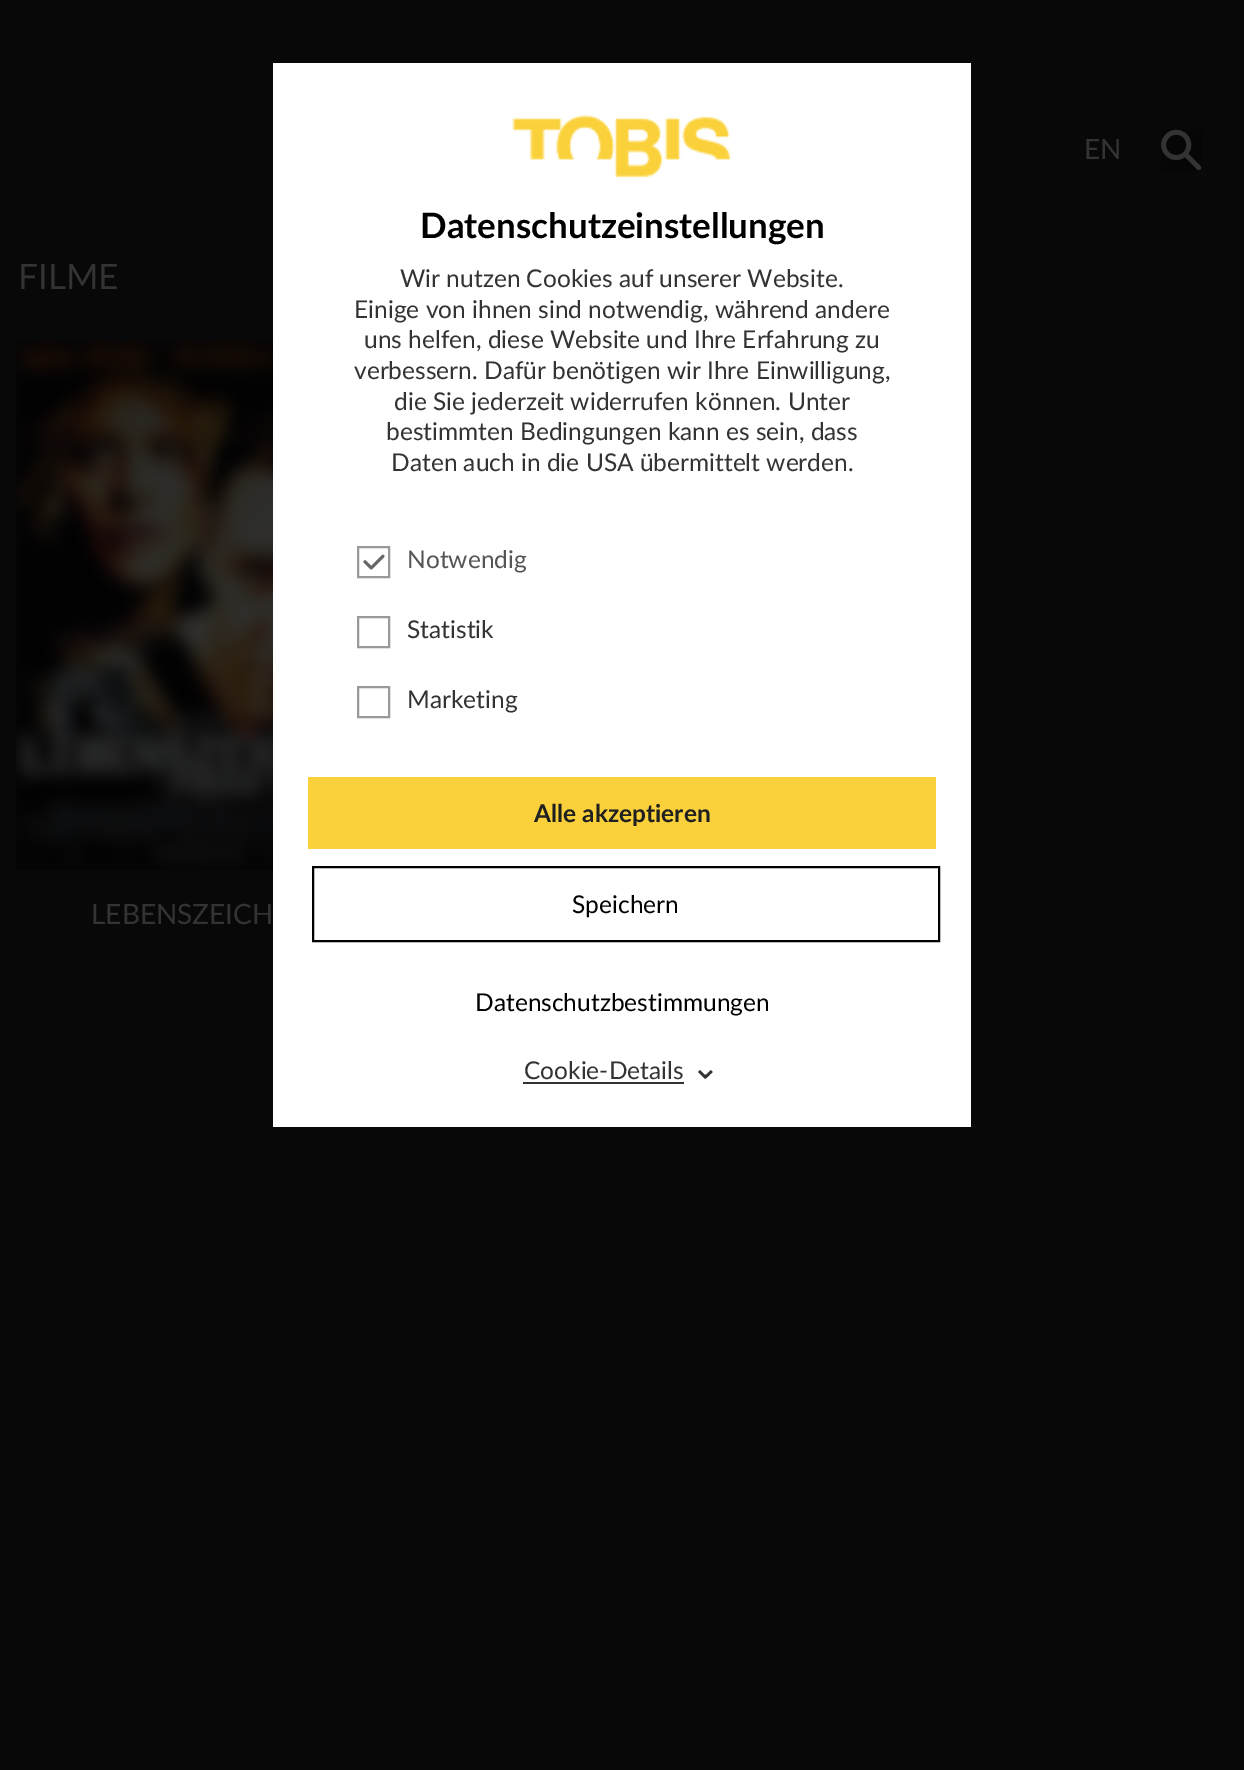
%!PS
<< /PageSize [1244 1770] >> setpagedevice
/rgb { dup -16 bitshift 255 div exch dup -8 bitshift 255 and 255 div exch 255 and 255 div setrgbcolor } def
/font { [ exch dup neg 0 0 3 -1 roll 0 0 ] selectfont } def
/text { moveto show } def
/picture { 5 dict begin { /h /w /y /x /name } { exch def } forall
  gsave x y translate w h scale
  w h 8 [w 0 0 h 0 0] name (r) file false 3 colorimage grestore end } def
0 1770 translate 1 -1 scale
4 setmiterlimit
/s1 { /Lato-Regular 28 font 16#333333 rgb } def
/s2 { /Lato-Regular 35 font 16#333333 rgb } def
/s3 { /Lato-Bold 35 font 16#000000 rgb } def
/s4 { /Lato-Regular 24.5 font 16#333333 rgb } def
/s5 { /Lato-Regular 24.5 font 16#555555 rgb } def
/s6 { /Lato-Bold 24.5 font 16#202020 rgb } def
/s7 { /Lato-Regular 24.5 font 16#000000 rgb } def
16#080808 rgb
0 0 1244 1770 rectfill
s1
(EN) 1084 159 text
(pic1.raw) 1161 129 41 42 picture
s2
(FILME) 18 289 text
(pic2.raw) 16 341 257 529 picture
s1
(LEBENSZEICH) 91 924 text
16#FFFFFF rgb
273 63 698 1064 rectfill
(pic3.raw) 512 115 219 63 picture
s3
(Datenschutzeinstellungen) 420 238 text
s4
(Wir nutzen Cookies auf unserer Website.) 400 287 text
(Einige von ihnen sind notwendig, während andere) 354 318 text
(uns helfen, diese Website und Ihre Erfahrung zu) 364 348 text
(verbessern. Dafür benötigen wir Ihre Einwilligung,) 354 379 text
(die Sie jederzeit widerrufen können. Unter) 394 410 text
(bestimmten Bedingungen kann es sein, dass) 386 440 text
(Daten auch in die USA übermittelt werden.) 391 471 text
16#999999 rgb
2 setlinewidth
358 547 31 30 rectstroke
s5
(Notwendig) 407 568 text
(pic4.raw) 363 554 22 16 picture
16#999999 rgb
358 617 31 30 rectstroke
s4
(Statistik) 407 638 text
16#999999 rgb
358 687 31 30 rectstroke
s4
(Marketing) 407 708 text
16#FAD13B rgb
308 777 628 72 rectfill
s6
(Alle akzeptieren) 534 822 text
16#000000 rgb
313 867 626 74 rectstroke
s7
(Speichern) 572 913 text
(Datenschutzbestimmungen) 475 1011 text
s4
(Cookie-Details) 524 1079 text
523 1082 161 2 rectfill
/DejaVuSans-Regular 35 font
gsave 720 1053 translate 180 rotate 0 0 moveto (⌃) show grestore
showpage
